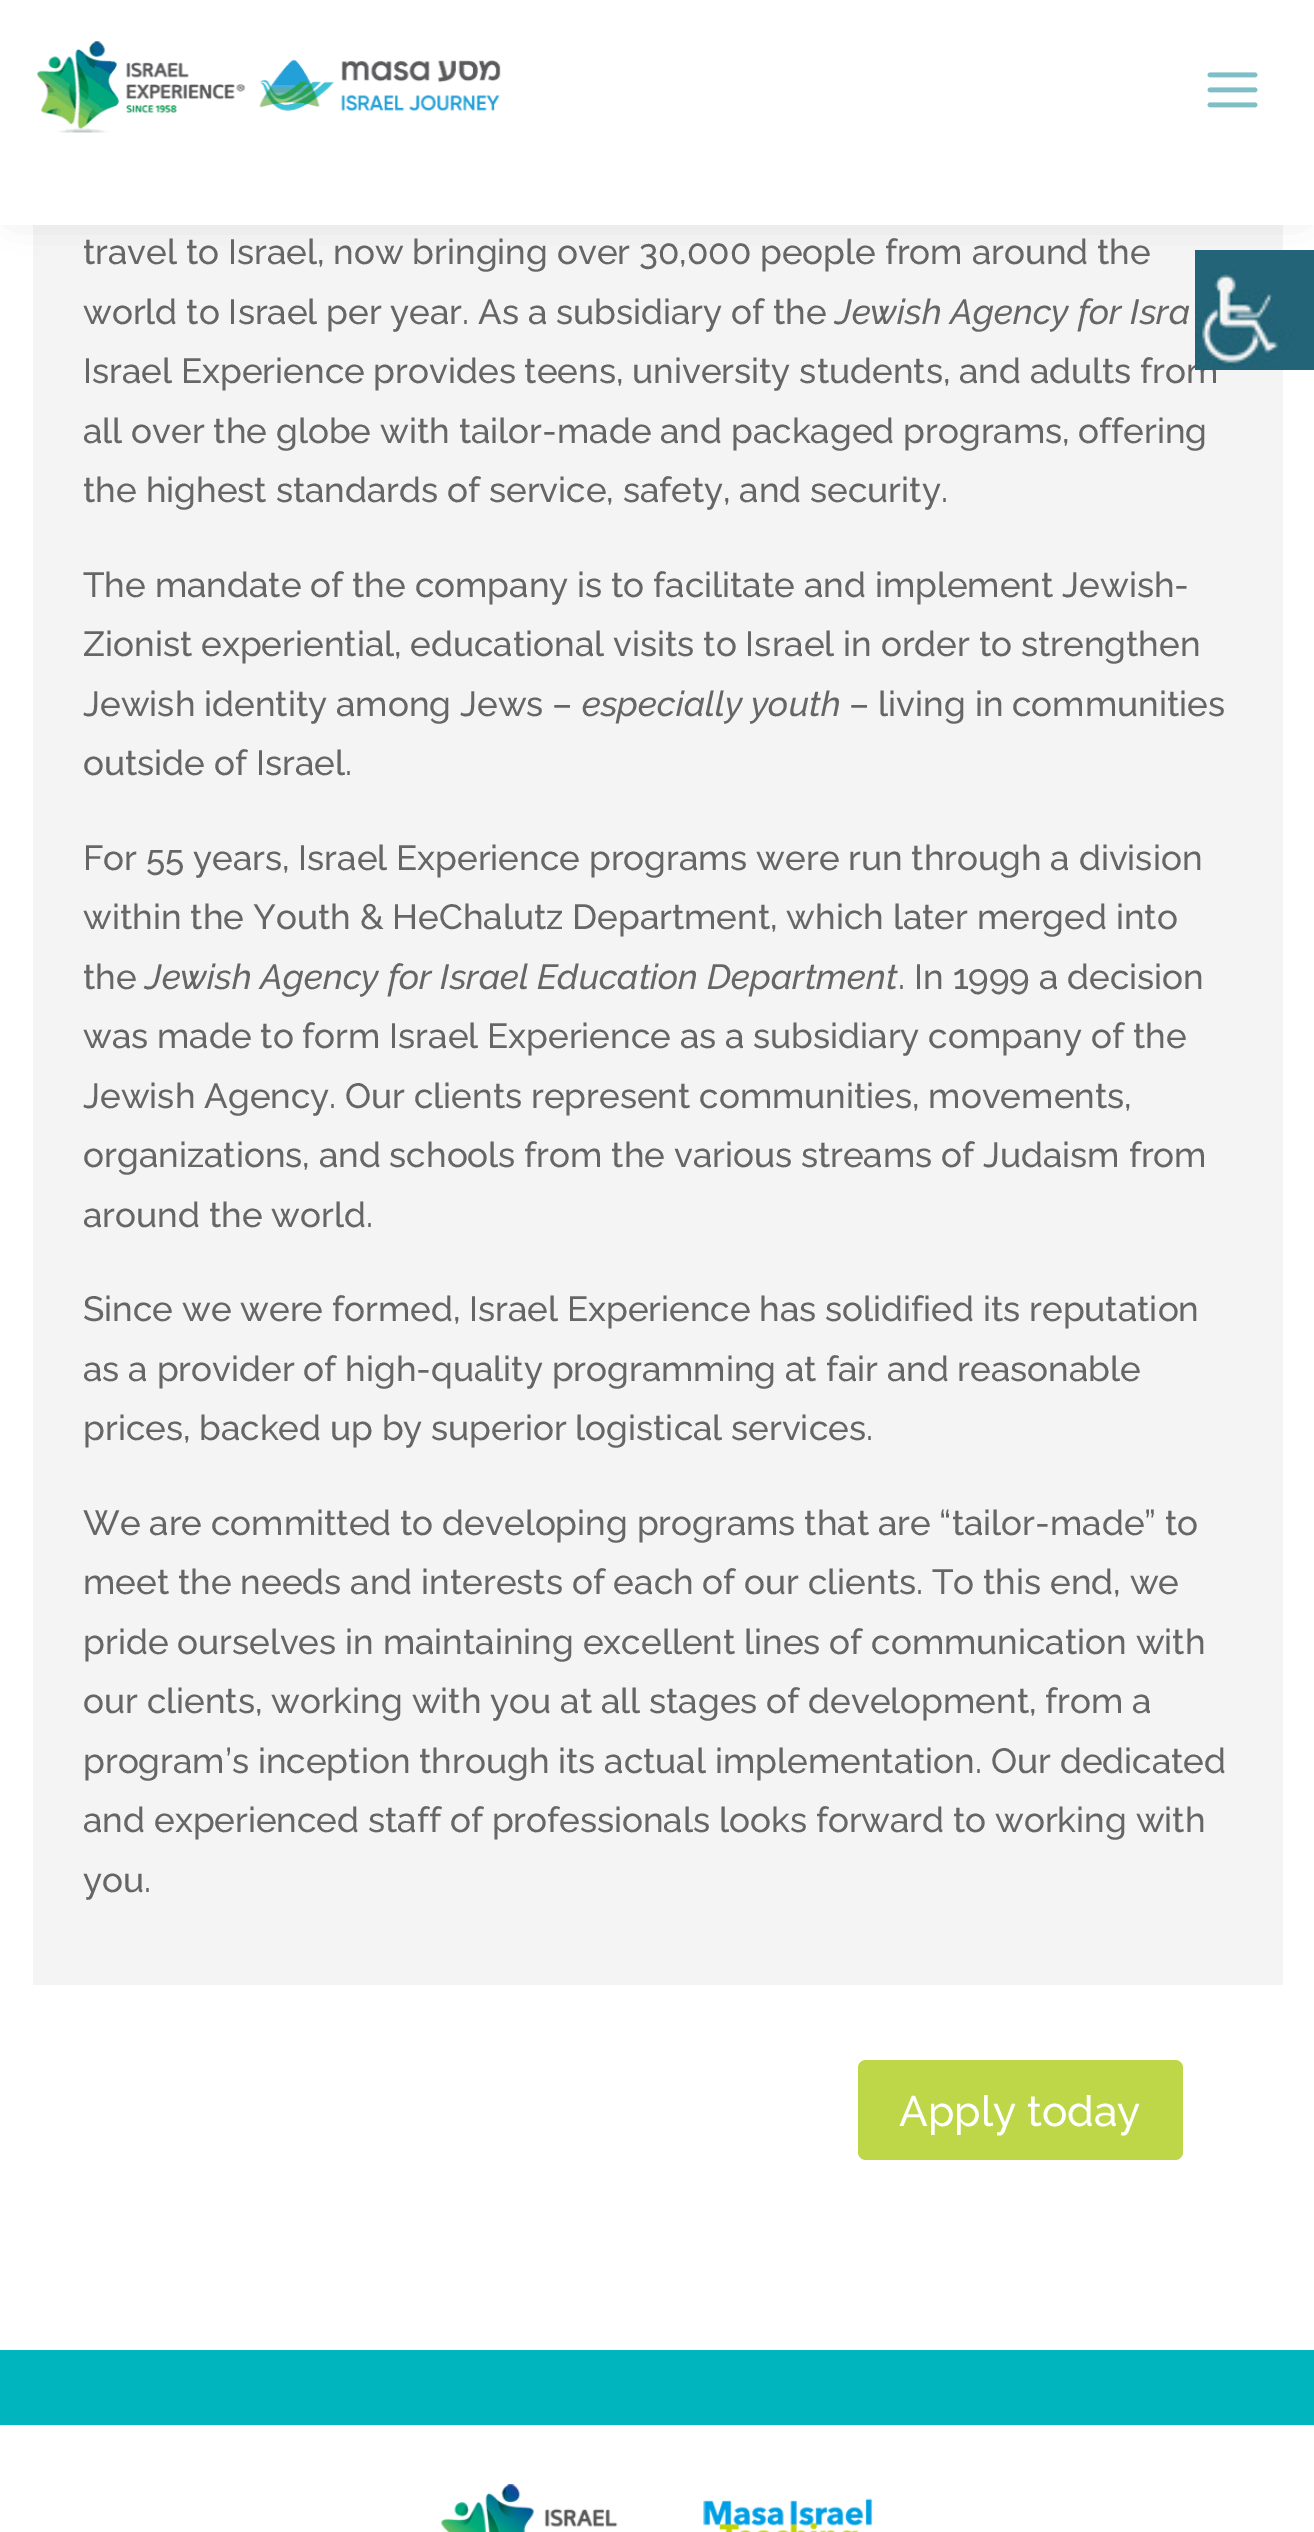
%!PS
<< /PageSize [1314 2532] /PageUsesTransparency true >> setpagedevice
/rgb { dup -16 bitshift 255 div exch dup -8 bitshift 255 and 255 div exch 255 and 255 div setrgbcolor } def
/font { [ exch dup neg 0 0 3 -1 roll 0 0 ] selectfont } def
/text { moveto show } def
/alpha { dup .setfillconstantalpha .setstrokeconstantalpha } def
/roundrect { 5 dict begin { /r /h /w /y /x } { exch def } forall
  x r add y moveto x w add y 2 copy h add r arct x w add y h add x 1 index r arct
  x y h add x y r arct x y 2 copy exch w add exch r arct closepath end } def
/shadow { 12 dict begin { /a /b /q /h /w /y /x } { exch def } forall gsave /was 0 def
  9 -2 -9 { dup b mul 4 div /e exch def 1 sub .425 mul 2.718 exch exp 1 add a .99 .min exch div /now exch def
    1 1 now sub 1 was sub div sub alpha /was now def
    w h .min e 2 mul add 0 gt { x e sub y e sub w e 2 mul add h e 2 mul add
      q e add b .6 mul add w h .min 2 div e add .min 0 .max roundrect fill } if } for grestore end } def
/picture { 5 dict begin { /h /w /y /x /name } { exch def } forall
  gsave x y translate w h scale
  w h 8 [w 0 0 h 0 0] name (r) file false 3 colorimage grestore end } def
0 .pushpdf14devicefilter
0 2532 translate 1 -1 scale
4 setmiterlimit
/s1 { /Raleway-Medium 35 font 16#666666 rgb } def
/s2 { /Raleway-MediumItalic 35 font 16#666666 rgb } def
/s3 { /Raleway-Medium 42.5 font 16#FFFFFF rgb } def
16#FFFFFF rgb
0 0 1314 2532 rectfill
16#F4F4F4 rgb
33 225 1250 1760 rectfill
16#000000 rgb
15 15 1285 195 0 20 0.17 shadow
16#FFFFFF rgb
0 0 1314 225 rectfill
(pic1.raw) 37 41 464 92 picture
(pic2.raw) 1207 72 51 36 picture
s1
(travel to Israel, now bringing over 30,000 people from around the) 83 264 text
(world to Israel per year. As a subsidiary of the) 83 324 text
s2
(Jewish Agency for Isra) 835 324 text
s1
(Israel Experience provides teens, university students, and adults from) 83 383 text
(all over the globe with tailor-made and packaged programs, offering) 83 443 text
(the highest standards of service, safety, and security.) 83 502 text
(The mandate of the company is to facilitate and implement Jewish-) 83 597 text
(Zionist experiential, educational visits to Israel in order to strengthen) 83 656 text
(Jewish identity among Jews –) 83 716 text
s2
(especially youth) 582 716 text
s1
(– living in communities) 849 716 text
(outside of Israel.) 83 775 text
(For 55 years, Israel Experience programs were run through a division) 83 870 text
(within the Youth & HeChalutz Department, which later merged into) 83 929 text
(the) 83 989 text
s2
(Jewish Agency for Israel Education Department) 145 989 text
s1
(. In 1999 a decision) 898 989 text
(was made to form Israel Experience as a subsidiary company of the) 83 1048 text
(Jewish Agency. Our clients represent communities, movements,) 83 1108 text
(organizations, and schools from the various streams of Judaism from) 83 1167 text
(around the world.) 83 1227 text
(Since we were formed, Israel Experience has solidified its reputation) 83 1321 text
(as a provider of high-quality programming at fair and reasonable) 83 1381 text
(prices, backed up by superior logistical services.) 83 1440 text
(We are committed to developing programs that are “tailor-made” to) 83 1535 text
(meet the needs and interests of each of our clients. To this end, we) 83 1594 text
(pride ourselves in maintaining excellent lines of communication with) 83 1654 text
(our clients, working with you at all stages of development, from a) 83 1713 text
(program’s inception through its actual implementation. Our dedicated) 83 1773 text
(and experienced staff of professionals looks forward to working with) 83 1832 text
(you.) 83 1892 text
16#BDD749 rgb
858 2060 325 100 8 roundrect fill
s3
(Apply today) 899 2126 text
16#01B5BF rgb
0 2350 1314 75 rectfill
(pic3.raw) 441 2484 432 48 picture
(pic4.raw) 1195 250 119 120 picture
.poppdf14devicefilter showpage
